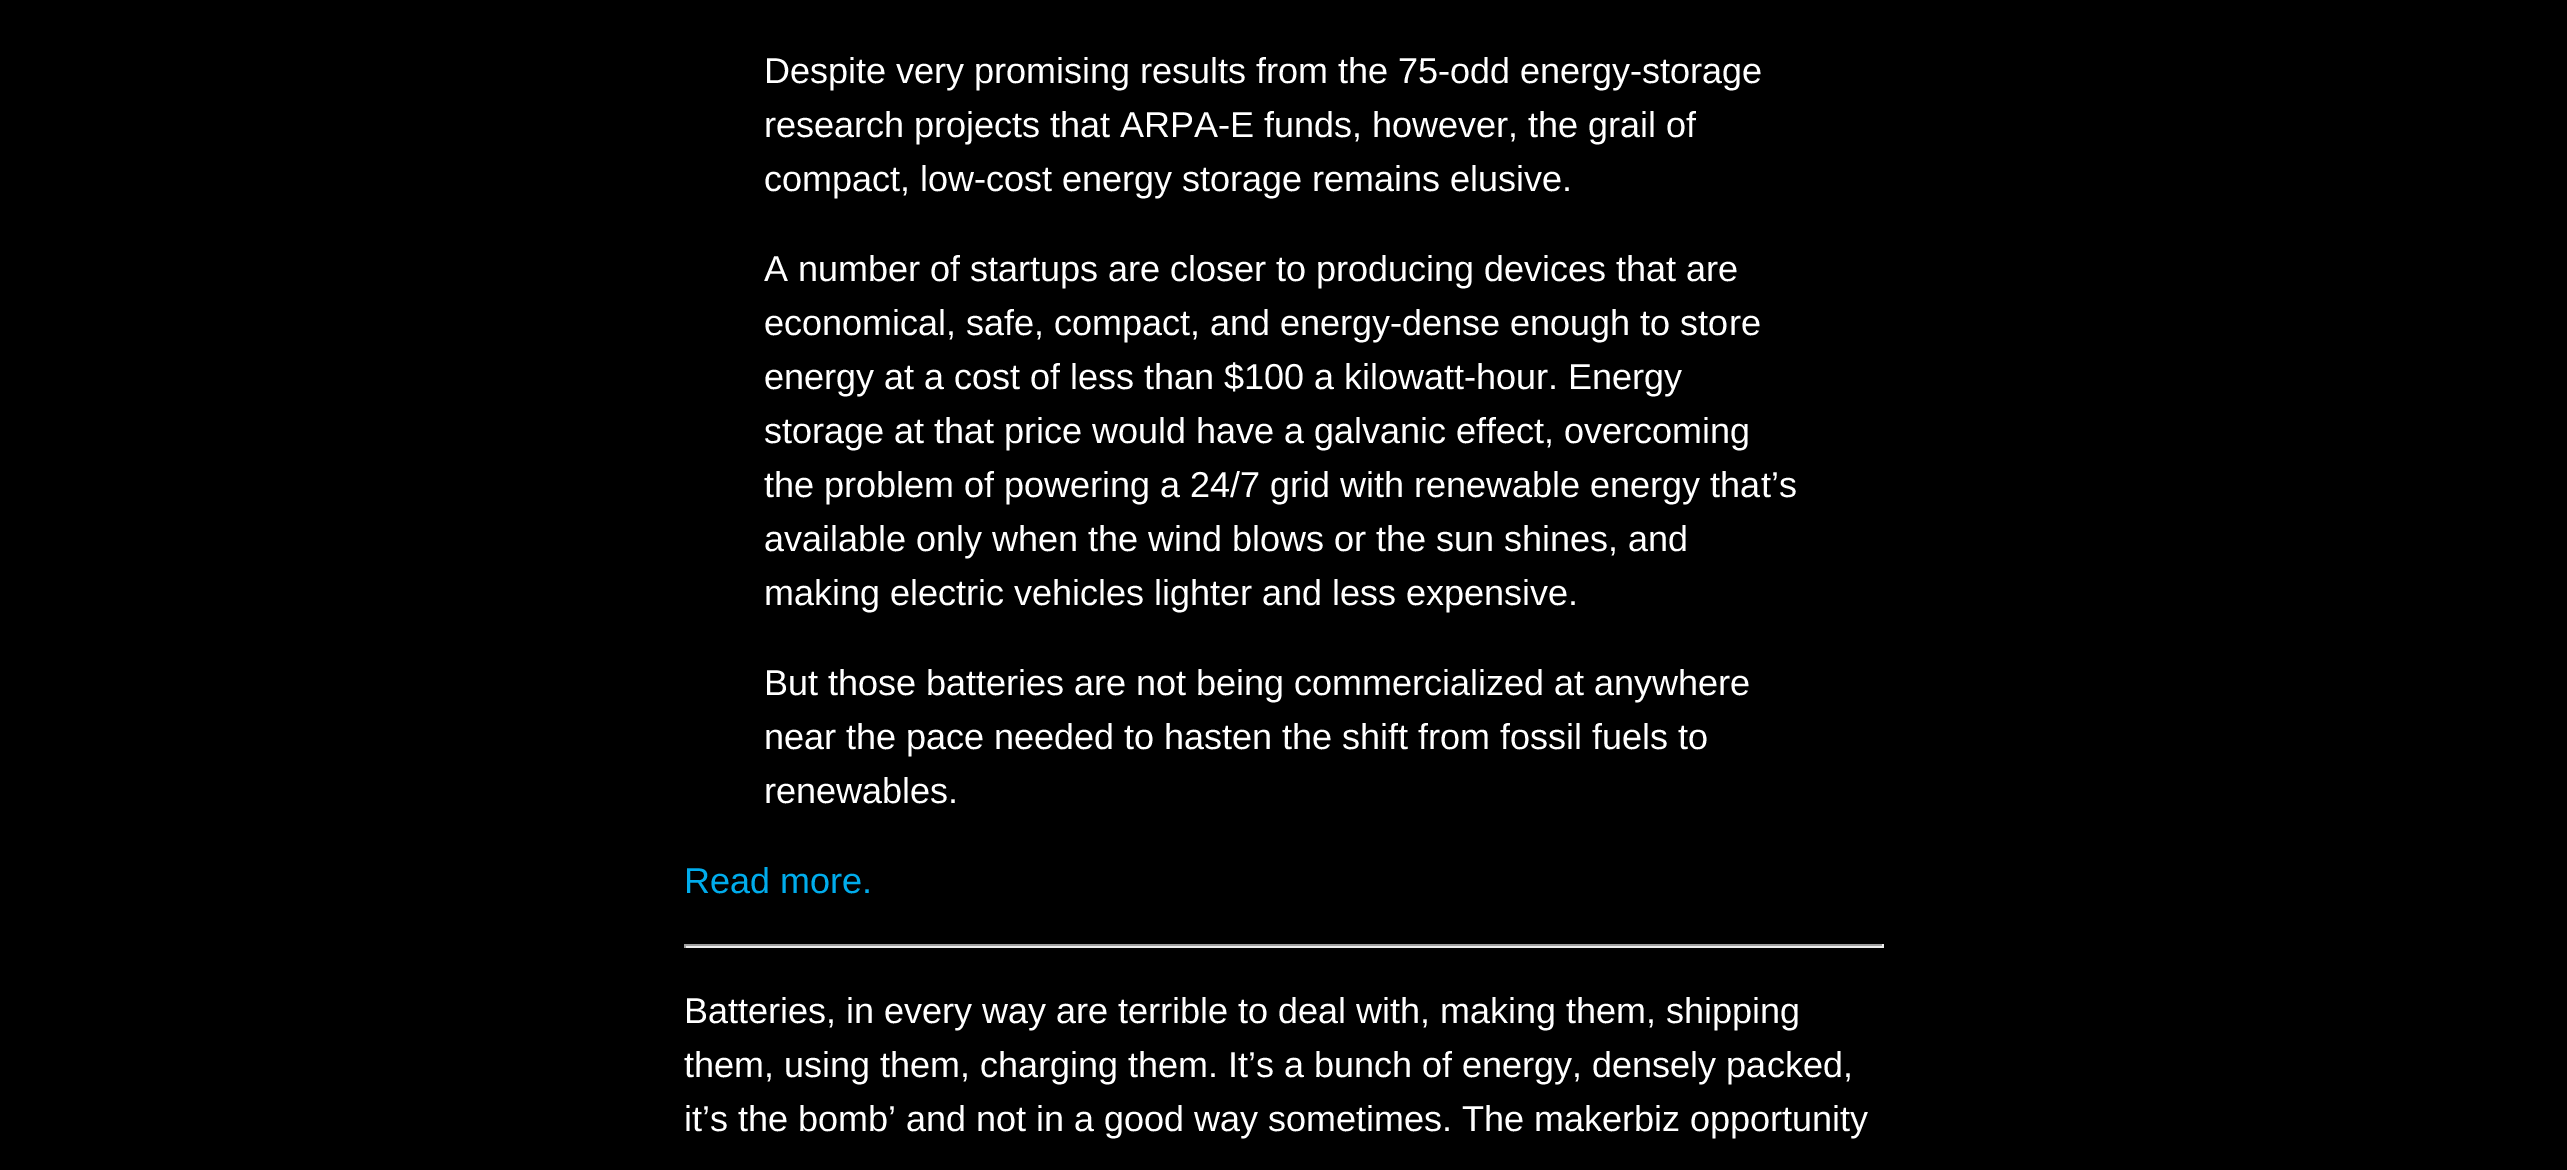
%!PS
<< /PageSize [2567 1170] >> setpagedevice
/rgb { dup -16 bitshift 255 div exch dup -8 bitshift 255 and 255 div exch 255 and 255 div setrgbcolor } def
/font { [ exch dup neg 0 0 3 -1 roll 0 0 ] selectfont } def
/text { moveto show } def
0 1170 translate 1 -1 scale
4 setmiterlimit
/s1 { /LiberationSans-Regular 36 font 16#FFFFFF rgb } def
/s2 { /LiberationSans-Regular 36 font 16#00ACEC rgb } def
16#000000 rgb
0 0 2567 1170 rectfill
s1
(Despite very promising results from the 75-odd energy-storage) 764 83 text
(research projects that ARPA-E funds, however, the grail of) 764 137 text
(compact, low-cost energy storage remains elusive.) 764 191 text
(A number of startups are closer to producing devices that are) 764 281 text
(economical, safe, compact, and energy-dense enough to store) 764 335 text
(energy at a cost of less than $100 a kilowatt-hour. Energy) 764 389 text
(storage at that price would have a galvanic effect, overcoming) 764 443 text
(the problem of powering a 24/7 grid with renewable energy that’s) 764 497 text
(available only when the wind blows or the sun shines, and) 764 551 text
(making electric vehicles lighter and less expensive.) 764 605 text
(But those batteries are not being commercialized at anywhere) 764 695 text
(near the pace needed to hasten the shift from fossil fuels to) 764 749 text
(renewables.) 764 803 text
s2
(Read more.) 684 893 text
16#9F9F9F rgb
684 944 1200 2 rectfill
16#EEEEEE rgb
1882 944 2 4 rectfill
684 946 1200 2 rectfill
16#9F9F9F rgb
684 944 2 4 rectfill
s1
(Batteries, in every way are terrible to deal with, making them, shipping) 684 1023 text
(them, using them, charging them. It’s a bunch of energy, densely packed,) 684 1077 text
(it’s the bomb’ and not in a good way sometimes. The makerbiz opportunity) 684 1131 text
showpage
